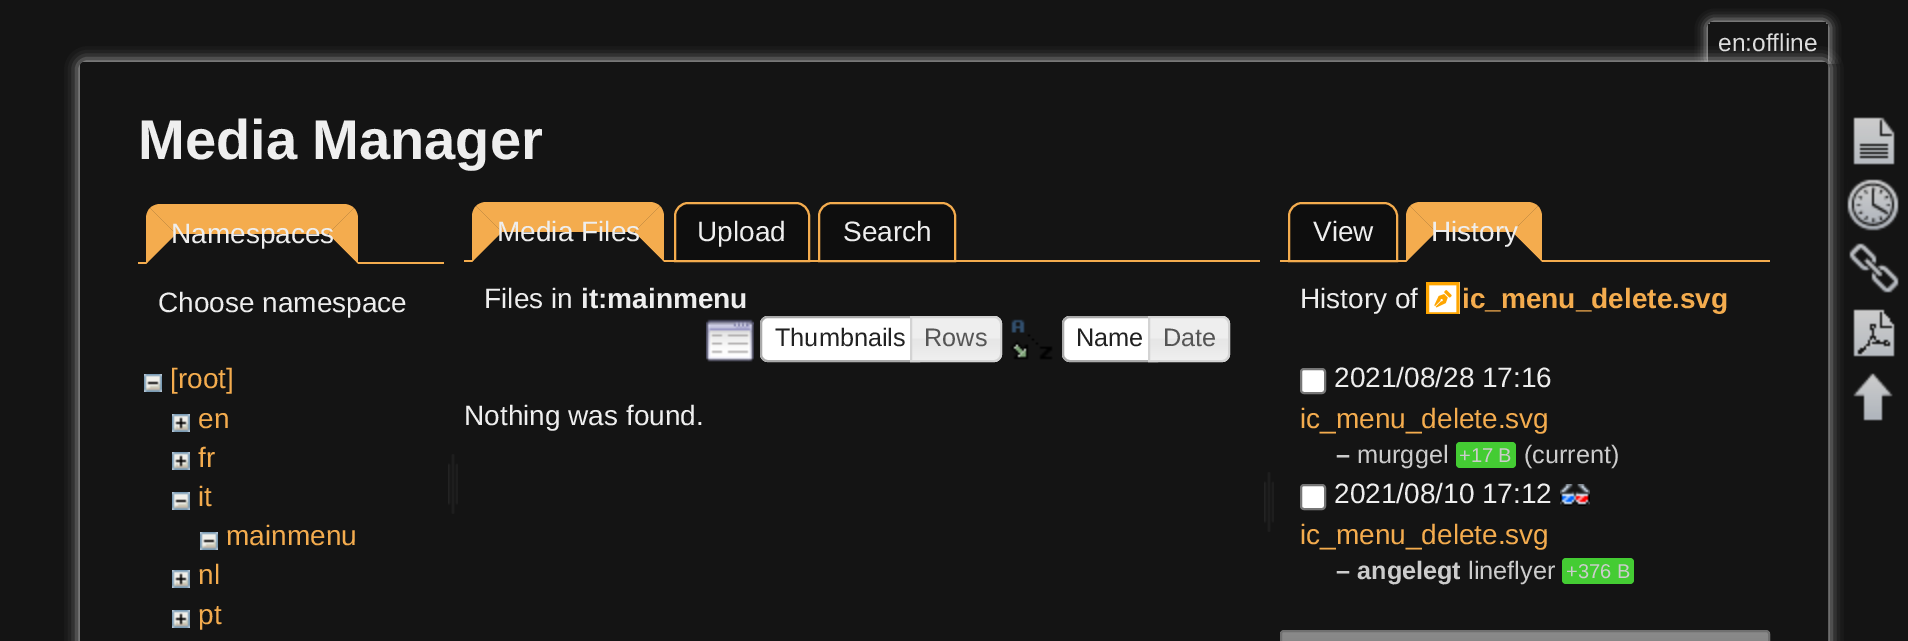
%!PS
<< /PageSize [1908 641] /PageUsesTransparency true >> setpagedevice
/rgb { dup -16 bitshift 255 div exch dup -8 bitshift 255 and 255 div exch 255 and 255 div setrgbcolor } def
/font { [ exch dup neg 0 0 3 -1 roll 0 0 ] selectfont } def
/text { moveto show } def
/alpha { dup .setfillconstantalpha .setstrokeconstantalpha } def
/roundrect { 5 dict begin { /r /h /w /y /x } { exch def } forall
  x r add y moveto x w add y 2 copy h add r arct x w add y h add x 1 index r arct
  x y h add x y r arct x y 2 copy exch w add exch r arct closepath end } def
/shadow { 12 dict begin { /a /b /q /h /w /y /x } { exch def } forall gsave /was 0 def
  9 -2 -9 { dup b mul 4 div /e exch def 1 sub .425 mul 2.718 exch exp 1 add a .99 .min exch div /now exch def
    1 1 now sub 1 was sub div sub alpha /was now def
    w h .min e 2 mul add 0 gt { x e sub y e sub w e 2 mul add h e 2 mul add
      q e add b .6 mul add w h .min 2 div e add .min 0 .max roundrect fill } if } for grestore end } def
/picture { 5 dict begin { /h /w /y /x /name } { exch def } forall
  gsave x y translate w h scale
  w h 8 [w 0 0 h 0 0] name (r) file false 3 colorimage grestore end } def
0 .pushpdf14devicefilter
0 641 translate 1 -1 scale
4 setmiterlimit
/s1 { /LiberationSans-Regular 24.5 font 16#DDDDDD rgb } def
/s2 { /LiberationSans-Bold 56 font 16#EEEEEE rgb } def
/s3 { /LiberationSans-Regular 28 font 16#EEEEEE rgb } def
/s4 { /LiberationSans-Regular 28 font 16#F4AC4E rgb } def
/s5 { /LiberationSans-Bold 28 font 16#EEEEEE rgb } def
/s6 { /LiberationSans-Regular 25.25 font 16#212121 rgb } def
/s7 { /LiberationSans-Regular 25.25 font 16#555555 rgb } def
/s8 { /LiberationSans-Bold 28 font 16#F4AC4E rgb } def
/s9 { /LiberationSans-Bold 25.25 font 16#CCCCCC rgb } def
/s10 { /LiberationSans-Regular 25.25 font 16#CCCCCC rgb } def
/s11 { /LiberationSans-Regular 20 font 16#CCCCCC rgb } def
16#141414 rgb
0 0 1908 641 rectfill
gsave
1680 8 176 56 rectclip
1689 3 moveto 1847 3 lineto 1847 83 lineto 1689 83 lineto closepath 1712 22 moveto 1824 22 lineto 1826 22 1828 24 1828 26 curveto 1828 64 lineto 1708 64 lineto 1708 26 lineto 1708 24 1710 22 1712 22 curveto closepath eoclip newpath
16#DDDDDD rgb
1708 22 120 42 4 6 1 shadow
grestore
1710 22 116 1 rectfill
1827 24 1 2 rectfill
1708 24 1 2 rectfill
s1
(en:offline) 1718 51 text
80 62 1748 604 4 7 1 shadow
16#141414 rgb
81 63 1746 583 3 roundrect gsave fill grestore
2 setlinewidth
stroke
s2
(Media Manager) 138 159 text
16#F4AC4E rgb
160 204 moveto 344 204 lineto 348 204 352 206 354 208 curveto 328 234 lineto 176 234 lineto 150 208 lineto 152 206 156 204 160 204 curveto closepath fill
138 262 306 2 rectfill
354 208 moveto 328 234 lineto 358 264 lineto 358 218 lineto 358 214 356 210 354 208 curveto closepath fill
16#141414 rgb
358 264 moveto 328 234 lineto 176 234 lineto 146 264 lineto closepath fill
16#F4AC4E rgb
146 264 moveto 146 218 lineto 146 214 148 210 150 208 curveto 176 234 lineto closepath fill
s3
(Namespaces) 171 243 text
(Choose namespace) 158 312 text
(pic1.raw) 144 374 18 18 picture
s4
([root]) 170 388 text
(pic2.raw) 172 414 18 18 picture
(en) 198 428 text
(pic2.raw) 172 452 18 18 picture
(fr) 198 467 text
(pic1.raw) 172 492 18 18 picture
(it) 198 506 text
(pic1.raw) 200 532 18 18 picture
(mainmenu) 226 545 text
(pic2.raw) 172 570 18 18 picture
(nl) 198 584 text
(pic2.raw) 172 610 18 18 picture
(pt) 198 624 text
(pic3.raw) 448 454 10 60 picture
486 202 moveto 650 202 lineto 654 202 658 204 660 206 curveto 634 232 lineto 502 232 lineto 476 206 lineto 478 204 482 202 486 202 curveto closepath fill
16#0E0E0E rgb
688 203 moveto 796 203 lineto 803 203 809 209 809 216 curveto 809 261 lineto 675 261 lineto 675 216 lineto 675 209 681 203 688 203 curveto closepath gsave fill grestore
16#F4AC4E rgb
stroke
16#0E0E0E rgb
832 203 moveto 942 203 lineto 949 203 955 209 955 216 curveto 955 261 lineto 819 261 lineto 819 216 lineto 819 209 825 203 832 203 curveto closepath gsave fill grestore
16#F4AC4E rgb
stroke
464 260 796 2 rectfill
660 206 moveto 634 232 lineto 664 262 lineto 664 216 lineto 664 212 662 208 660 206 curveto closepath fill
16#141414 rgb
664 262 moveto 634 232 lineto 502 232 lineto 472 262 lineto closepath fill
16#F4AC4E rgb
472 262 moveto 472 216 lineto 472 212 474 208 476 206 curveto 502 232 lineto closepath fill
s3
(Media Files) 497 241 text
(Upload) 697 241 text
(Search) 843 241 text
(Files in) 484 308 text
s5
(it:mainmenu) 581 308 text
(pic4.raw) 706 319 48 43 picture
16#FFFFFF rgb
768 316 moveto 920 316 lineto 920 362 lineto 768 362 lineto 763.5 362 760 358.5 760 354 curveto 760 324 lineto 760 319.5 763.5 316 768 316 curveto closepath fill
(pic5.raw) 760 316 8 46 picture
16#AAAAAA rgb
768 317 moveto 919 317 lineto 919 361 lineto 768 361 lineto 764 361 761 358 761 354 curveto 761 324 lineto 761 320 764 317 768 317 curveto closepath stroke
s6
(Thumbnails) 775 346 text
(pic6.raw) 912 316 90 46 picture
16#D3D3D3 rgb
911 317 moveto 994 317 lineto 998 317 1001 320 1001 324 curveto 1001 354 lineto 1001 358 998 361 994 361 curveto 911 361 lineto closepath stroke
s7
(Rows) 924 346 text
(pic7.raw) 1010 319 43 41 picture
16#FFFFFF rgb
1070 316 moveto 1158 316 lineto 1158 362 lineto 1070 362 lineto 1065.5 362 1062 358.5 1062 354 curveto 1062 324 lineto 1062 319.5 1065.5 316 1070 316 curveto closepath fill
(pic8.raw) 1062 316 8 46 picture
16#AAAAAA rgb
1070 317 moveto 1157 317 lineto 1157 361 lineto 1070 361 lineto 1066 361 1063 358 1063 354 curveto 1063 324 lineto 1063 320 1066 317 1070 317 curveto closepath stroke
s6
(Name) 1076 346 text
(pic9.raw) 1150 316 80 46 picture
16#D3D3D3 rgb
1149 317 moveto 1222 317 lineto 1226 317 1229 320 1229 324 curveto 1229 354 lineto 1229 358 1226 361 1222 361 curveto 1149 361 lineto closepath stroke
s7
(Date) 1163 346 text
s3
(Nothing was found.) 464 425 text
(pic3.raw) 1264 472 10 60 picture
16#0E0E0E rgb
1302 203 moveto 1384 203 lineto 1391 203 1397 209 1397 216 curveto 1397 261 lineto 1289 261 lineto 1289 216 lineto 1289 209 1295 203 1302 203 curveto closepath gsave fill grestore
16#F4AC4E rgb
stroke
s3
(View) 1313 241 text
16#F4AC4E rgb
1420 202 moveto 1528 202 lineto 1532 202 1536 204 1538 206 curveto 1512 232 lineto 1436 232 lineto 1410 206 lineto 1412 204 1416 202 1420 202 curveto closepath fill
1280 260 490 2 rectfill
1538 206 moveto 1512 232 lineto 1542 262 lineto 1542 216 lineto 1542 212 1540 208 1538 206 curveto closepath fill
16#141414 rgb
1542 262 moveto 1512 232 lineto 1436 232 lineto 1406 262 lineto closepath fill
16#F4AC4E rgb
1406 262 moveto 1406 216 lineto 1406 212 1408 208 1410 206 curveto 1436 232 lineto closepath fill
s3
(History) 1431 241 text
(History of) 1300 308 text
(pic10.raw) 1426 282 34 32 picture
s8
(ic_menu_delete.svg) 1462 308 text
16#FFFFFF rgb
1301 369 24 24 3 roundrect gsave fill grestore
16#767676 rgb
stroke
s3
(2021/08/28 17:16) 1334 387 text
s4
(ic_menu_delete.svg) 1300 428 text
s9
(–) 1336 463 text
s10
(murggel) 1357 463 text
16#44CC33 rgb
1456 442 60 26 4 roundrect fill
s11
(+17 B) 1459 462 text
s10
(\(current\)) 1524 463 text
16#FFFFFF rgb
1301 485 24 24 3 roundrect gsave fill grestore
16#767676 rgb
stroke
s3
(2021/08/10 17:12) 1334 503 text
(pic11.raw) 1560 484 30 22 picture
s4
(ic_menu_delete.svg) 1300 544 text
s9
(– angelegt) 1336 579 text
s10
(lineflyer) 1468 579 text
16#44CC33 rgb
1562 558 72 26 4 roundrect fill
s11
(+376 B) 1566 578 text
gsave 1280 632 moveto 1770 632 lineto 1770 641 lineto 1280 641 lineto closepath clip newpath
<< /ShadingType 2 /ColorSpace /DeviceRGB /Coords [1525 632 1525 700] /Extend [true true] /Function << /FunctionType 3 /Domain [0 1] /Functions [<< /FunctionType 2 /Domain [0 1] /C0 [0.541 0.541 0.541] /C1 [0.518 0.518 0.518] /N 1 >> << /FunctionType 2 /Domain [0 1] /C0 [0.518 0.518 0.518] /C1 [0.506 0.506 0.506] /N 1 >> << /FunctionType 2 /Domain [0 1] /C0 [0.439 0.439 0.439] /C1 [0.439 0.439 0.439] /N 1 >>] /Bounds [0.3 0.99] /Encode [0 1 0 1 0 1] >> >> shfill grestore
16#707070 rgb
1281 631 488 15 3 roundrect stroke
(pic12.raw) 1853 117 42 48 picture
(pic13.raw) 1847 179 52 52 picture
(pic14.raw) 1849 243 50 50 picture
(pic15.raw) 1853 309 42 48 picture
(pic16.raw) 1853 373 40 48 picture
.poppdf14devicefilter showpage
